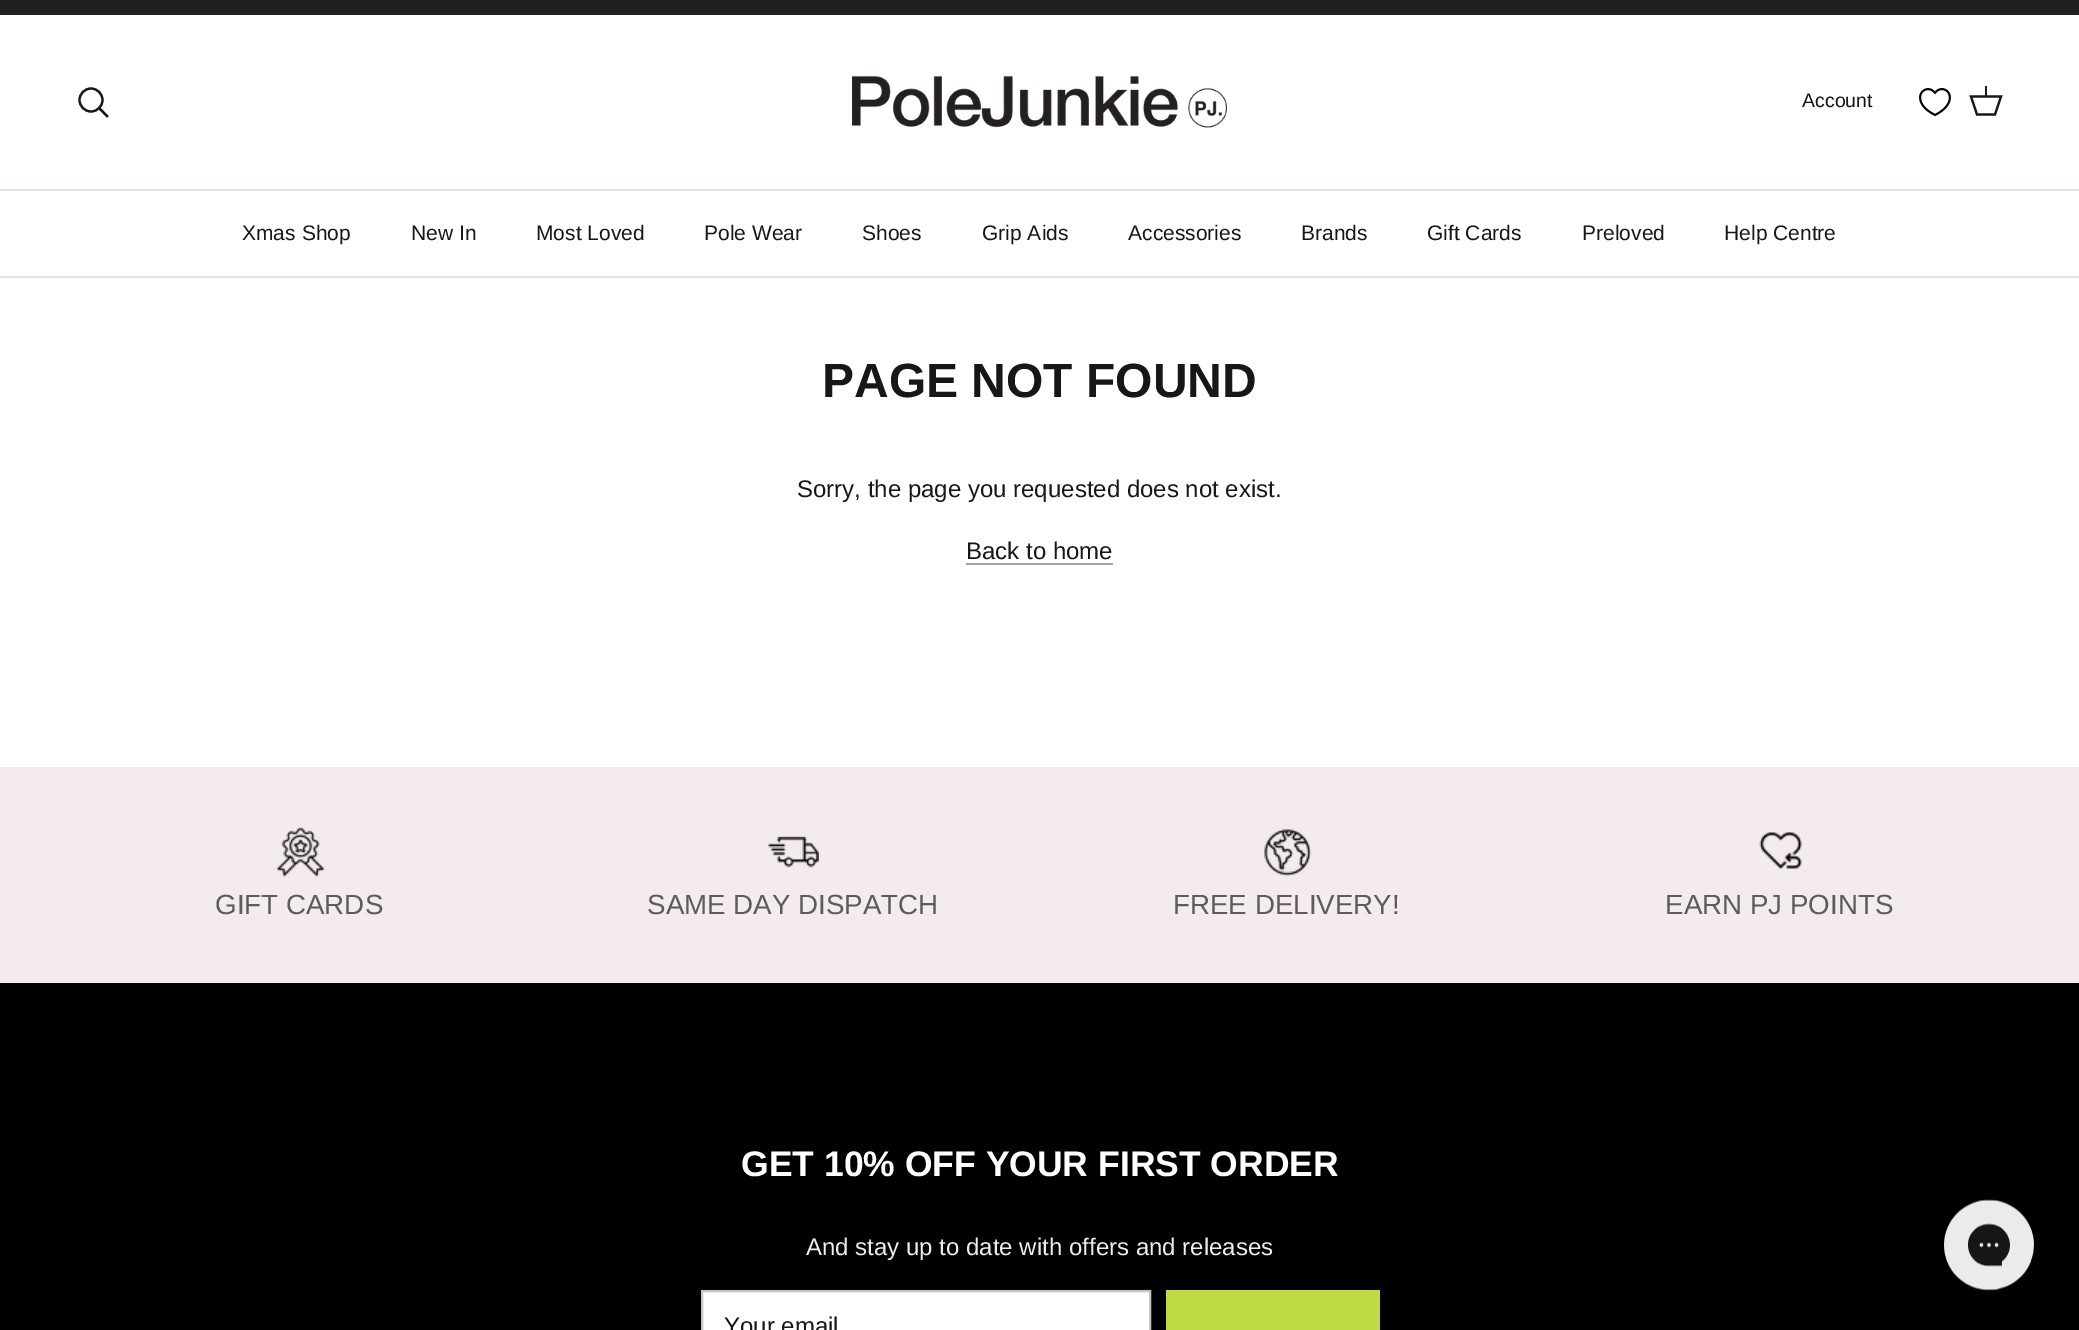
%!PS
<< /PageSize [2079 1330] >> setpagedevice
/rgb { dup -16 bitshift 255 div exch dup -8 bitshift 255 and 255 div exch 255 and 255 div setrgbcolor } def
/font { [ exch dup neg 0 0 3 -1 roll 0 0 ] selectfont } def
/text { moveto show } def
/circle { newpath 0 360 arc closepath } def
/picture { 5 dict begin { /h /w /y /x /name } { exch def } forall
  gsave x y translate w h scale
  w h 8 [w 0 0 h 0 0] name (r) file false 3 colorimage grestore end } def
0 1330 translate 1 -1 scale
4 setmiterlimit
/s1 { /LiberationSans-Regular 19.5 font 16#171717 rgb } def
/s2 { /LiberationSans-Regular 21 font 16#171717 rgb } def
/s3 { /LiberationSans-Bold 48 font 16#171717 rgb } def
/s4 { /LiberationSans-Regular 24 font 16#171717 rgb } def
/s5 { /LiberationSans-Regular 27.75 font 16#5C5C5C rgb } def
/s6 { /LiberationSans-Bold 35.5 font 16#FFFFFF rgb } def
/s7 { /LiberationSans-Regular 24 font 16#F3EBEE rgb } def
16#FFFFFF rgb
0 0 2079 1330 rectfill
16#202020 rgb
0 0 2079 15 rectfill
16#DFE3E8 rgb
0 189 2079 2 rectfill
16#171717 rgb
2.2 setlinewidth
91 100 11.5 circle stroke
2 setlinecap
100.5 109.5 moveto 107 116 lineto stroke
(pic1.raw) 852 75 375 53 picture
s1
(Account) 1802 107 text
(pic2.raw) 1919 88 32 29 picture
0 setlinecap
1971 96.5 moveto 2001 96.5 lineto 1995 114.5 lineto 1977 114.5 lineto closepath stroke
1985 86 2 11 rectfill
16#DFE3E8 rgb
0 276 2079 2 rectfill
s2
(Xmas Shop) 242 240 text
(New In) 411 240 text
(Most Loved) 536 240 text
(Pole Wear) 704 240 text
(Shoes) 862 240 text
(Grip Aids) 982 240 text
(Accessories) 1128 240 text
(Brands) 1301 240 text
(Gift Cards) 1427 240 text
(Preloved) 1582 240 text
(Help Centre) 1724 240 text
s3
(PAGE NOT FOUND) 822 397 text
s4
(Sorry, the page you requested does not exist.) 797 497 text
(Back to home) 966 559 text
16#A2A2A2 rgb
966 563 147 2 rectfill
16#F3EBEE rgb
0 767 2079 216 rectfill
(pic3.raw) 277 827 48 50 picture
s5
(GIFT CARDS) 215 914 text
(pic4.raw) 768 836 51 32 picture
(SAME DAY DISPATCH) 647 914 text
(pic5.raw) 1264 829 48 48 picture
(FREE DELIVERY!) 1173 914 text
(pic6.raw) 1759 831 43 38 picture
(EARN PJ POINTS) 1665 914 text
16#000000 rgb
0 983 2079 347 rectfill
s6
(GET 10% OFF YOUR FIRST ORDER) 741 1176 text
s7
(And stay up to date with offers and releases) 806 1255 text
16#FFFFFF rgb
702 1291 moveto 1150 1291 lineto 1150 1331 lineto 702 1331 lineto closepath gsave fill grestore
16#C5C5C5 rgb
2 setlinewidth
stroke
s4
(Your email) 724 1334 text
16#BEDC42 rgb
1166 1290 214 40 rectfill
(pic7.raw) 1944 1199 90 92 picture
showpage
